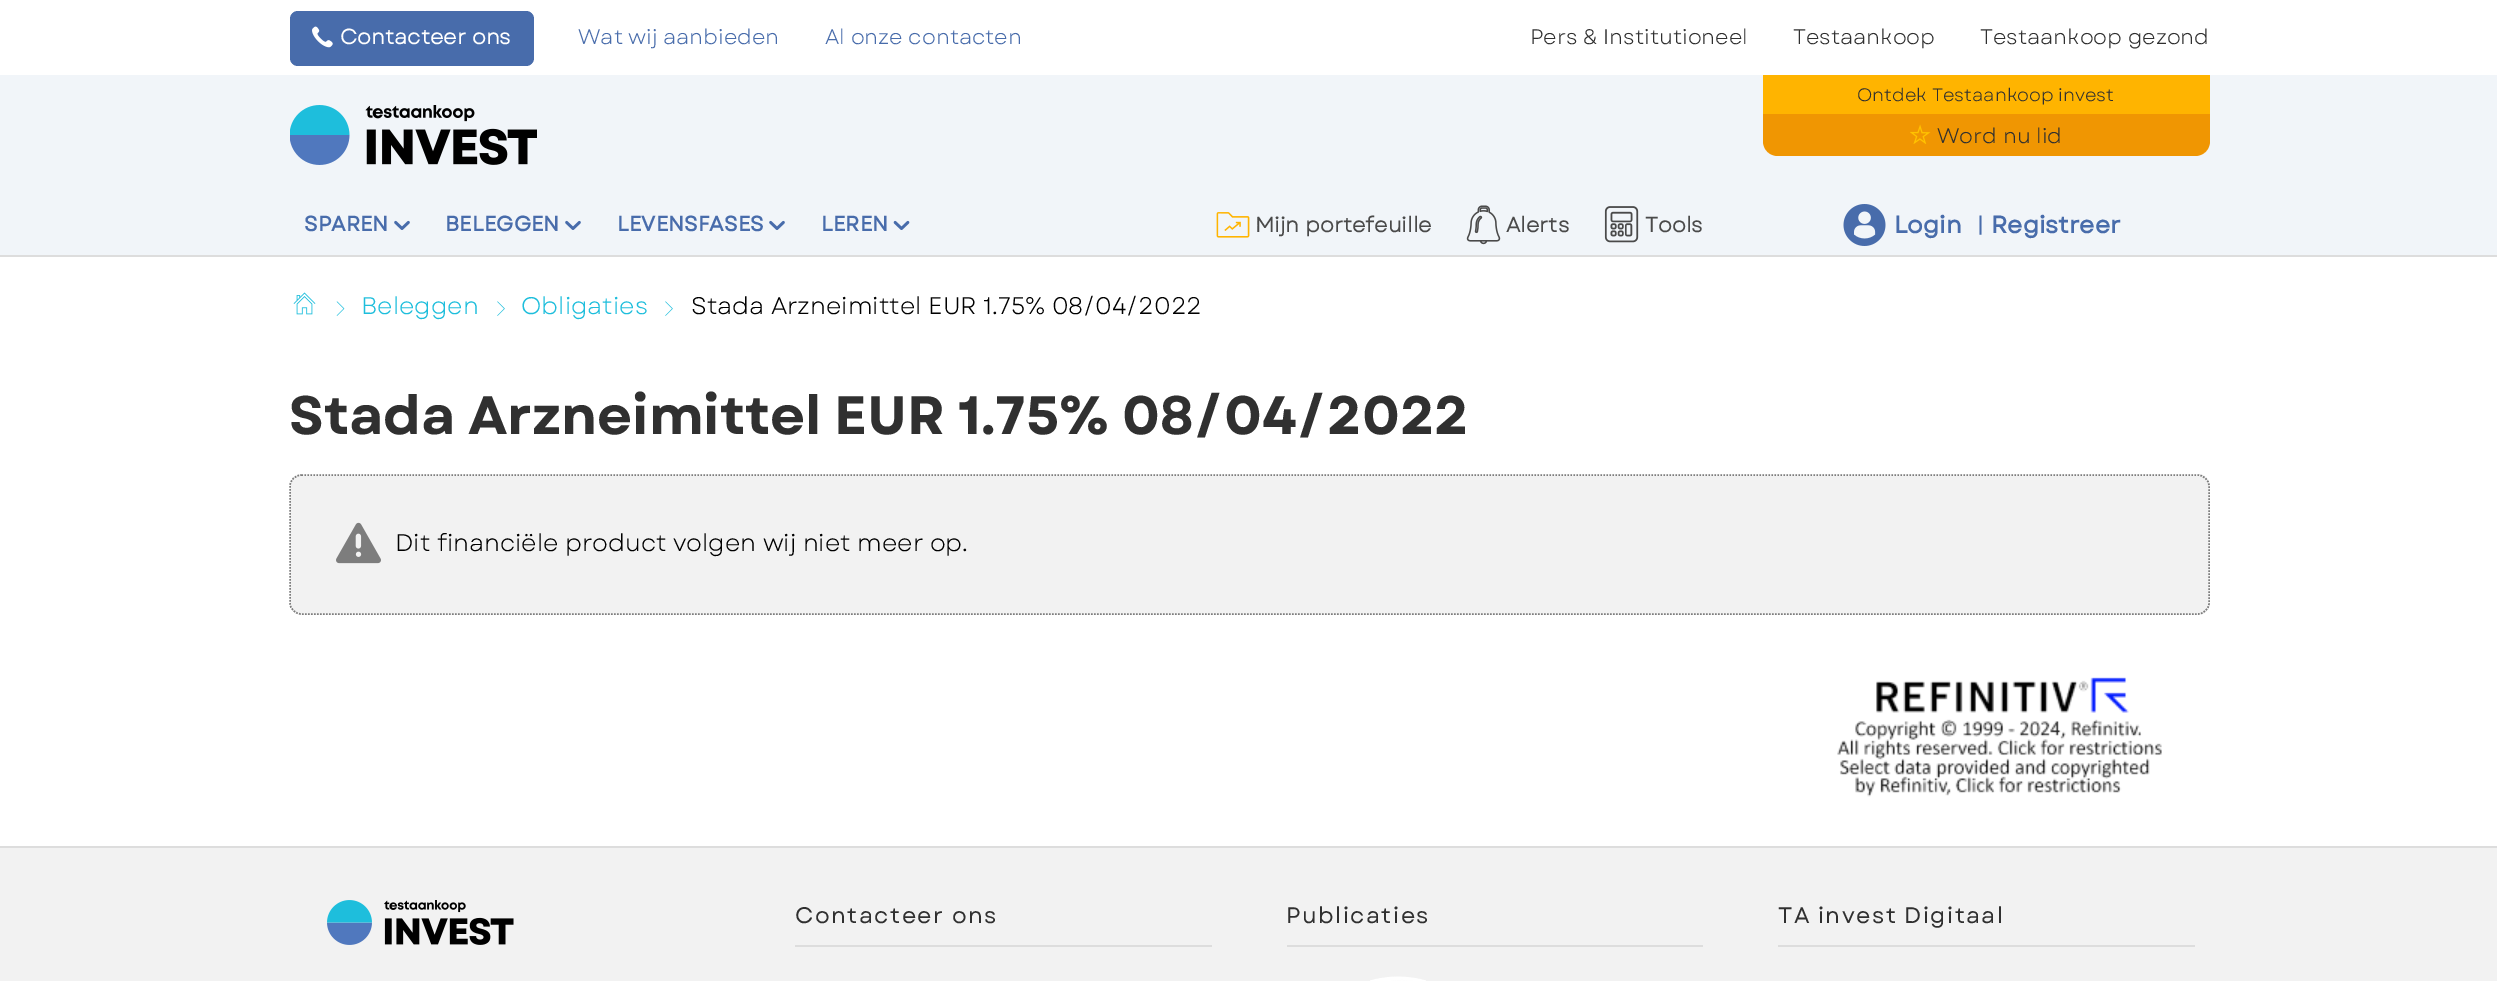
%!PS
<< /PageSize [2497 981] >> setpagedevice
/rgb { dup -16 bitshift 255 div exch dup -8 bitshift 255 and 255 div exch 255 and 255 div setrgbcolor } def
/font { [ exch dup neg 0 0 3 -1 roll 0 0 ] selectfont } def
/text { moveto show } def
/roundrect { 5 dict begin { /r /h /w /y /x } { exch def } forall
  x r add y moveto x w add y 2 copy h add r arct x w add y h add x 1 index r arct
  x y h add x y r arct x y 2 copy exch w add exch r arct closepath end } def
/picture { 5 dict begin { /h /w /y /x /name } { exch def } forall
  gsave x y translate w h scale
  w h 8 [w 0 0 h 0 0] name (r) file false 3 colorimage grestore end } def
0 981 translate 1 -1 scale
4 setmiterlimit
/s1 { /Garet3-Bold 21 font 16#FFFFFF rgb } def
/s2 { /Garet-Regular 21 font 16#486CAB rgb } def
/s3 { /Garet-Regular 21 font 16#303030 rgb } def
/s4 { /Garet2-Bold 21 font 16#486CAB rgb } def
/s5 { /Garet3-Bold 21 font 16#4A4A4A rgb } def
/s6 { /Garet-Regular 18 font 16#303030 rgb } def
/s7 { /Garet2-Bold 24 font 16#486CAB rgb } def
/s8 { /Garet2-Bold 20 font 16#486CAB rgb } def
/s9 { /Garet-Regular 24 font 16#1EBEDC rgb } def
/s10 { /Garet-Regular 24 font 16#000000 rgb } def
/s11 { /Garet-Bold 54 font 16#303030 rgb } def
16#FFFFFF rgb
0 0 2497 981 rectfill
16#486CAB rgb
290 11 244 55 8 roundrect fill
(pic1.raw) 312 26 21 22 picture
s1
(Contacteer ons) 340 44 text
s2
(Wat wij aanbieden) 578 44 text
(Al onze contacten) 825 44 text
s3
(Pers & Institutioneel) 1530 44 text
(Testaankoop) 1793 44 text
(Testaankoop gezond) 1980 44 text
16#F1F5F9 rgb
0 75 2497 180 rectfill
16#DDDDDD rgb
0 255 2497 2 rectfill
(pic2.raw) 290 105 247 60 picture
s4
(SPAREN) 304 231 text
(pic3.raw) 394 220 16 10 picture
(BELEGGEN) 445 231 text
(pic3.raw) 565 220 16 10 picture
(LEVENSFASES) 617 231 text
(pic3.raw) 769 220 16 10 picture
(LEREN) 821 231 text
(pic4.raw) 893 220 17 10 picture
(pic5.raw) 1216 212 34 26 picture
s5
(Mijn portefeuille) 1255 232 text
(pic6.raw) 1466 205 35 40 picture
(Alerts) 1506 232 text
(pic7.raw) 1604 206 35 37 picture
(Tools) 1645 232 text
16#FFB400 rgb
1763 75 447 39 rectfill
s6
(Ontdek Testaankoop invest) 1857 101 text
16#F09602 rgb
1763 114 moveto 2210 114 lineto 2210 141 lineto 2210 149.5 2203.5 156 2195 156 curveto 1778 156 lineto 1769.5 156 1763 149.5 1763 141 curveto closepath fill
(pic8.raw) 1910 124 21 20 picture
s3
(Word nu lid) 1937 143 text
(pic9.raw) 1843 204 43 42 picture
s7
(Login) 1894 233 text
s8
(|) 1977 232 text
s7
(Registreer) 1991 233 text
(pic10.raw) 293 292 23 23 picture
(pic11.raw) 336 301 9 15 picture
s9
(Beleggen) 361 314 text
(pic12.raw) 497 301 8 15 picture
(Obligaties) 521 314 text
(pic12.raw) 665 301 8 15 picture
s10
(Stada Arzneimittel EUR 1.75% 08/04/2022) 691 314 text
s11
(Stada Arzneimittel EUR 1.75% 08/04/2022) 289 434 text
16#F2F2F2 rgb
290 474 1920 141 12 roundrect fill
16#7D7D7D rgb
1.5 setlinewidth
[1.5 1.5] 0 setdash
301.5 475 moveto 2197.5 475 lineto 2203.5 475 2209 480 2209 486 curveto 2209 603 lineto 2209 609 2203.5 614 2197.5 614 curveto 301.5 614 lineto 295.5 614 290 609 290 603 curveto 290 486 lineto 290 480 295.5 475 301.5 475 curveto closepath stroke
(pic13.raw) 336 522 45 42 picture
s10
(Dit financiële product volgen wij niet meer op.) 395 551 text
(pic14.raw) 1837 677 325 120 picture
16#F2F2F2 rgb
0 848 2497 133 rectfill
16#DDDDDD rgb
0 846 2497 2 rectfill
(pic15.raw) 327 900 187 45 picture
795 945 417 2 rectfill
/Garet2-Regular 22.5 font
16#303030 rgb
795 923 moveto 1.5 0 (Contacteer ons) ashow
16#DDDDDD rgb
1287 945 416 2 rectfill
16#303030 rgb
1286 923 moveto 1.5 0 (Publicaties) ashow
(pic16.raw) 1370 976 56 5 picture
16#DDDDDD rgb
1778 945 417 2 rectfill
16#303030 rgb
1778 923 moveto 1.5 0 (TA invest Digitaal) ashow
showpage
